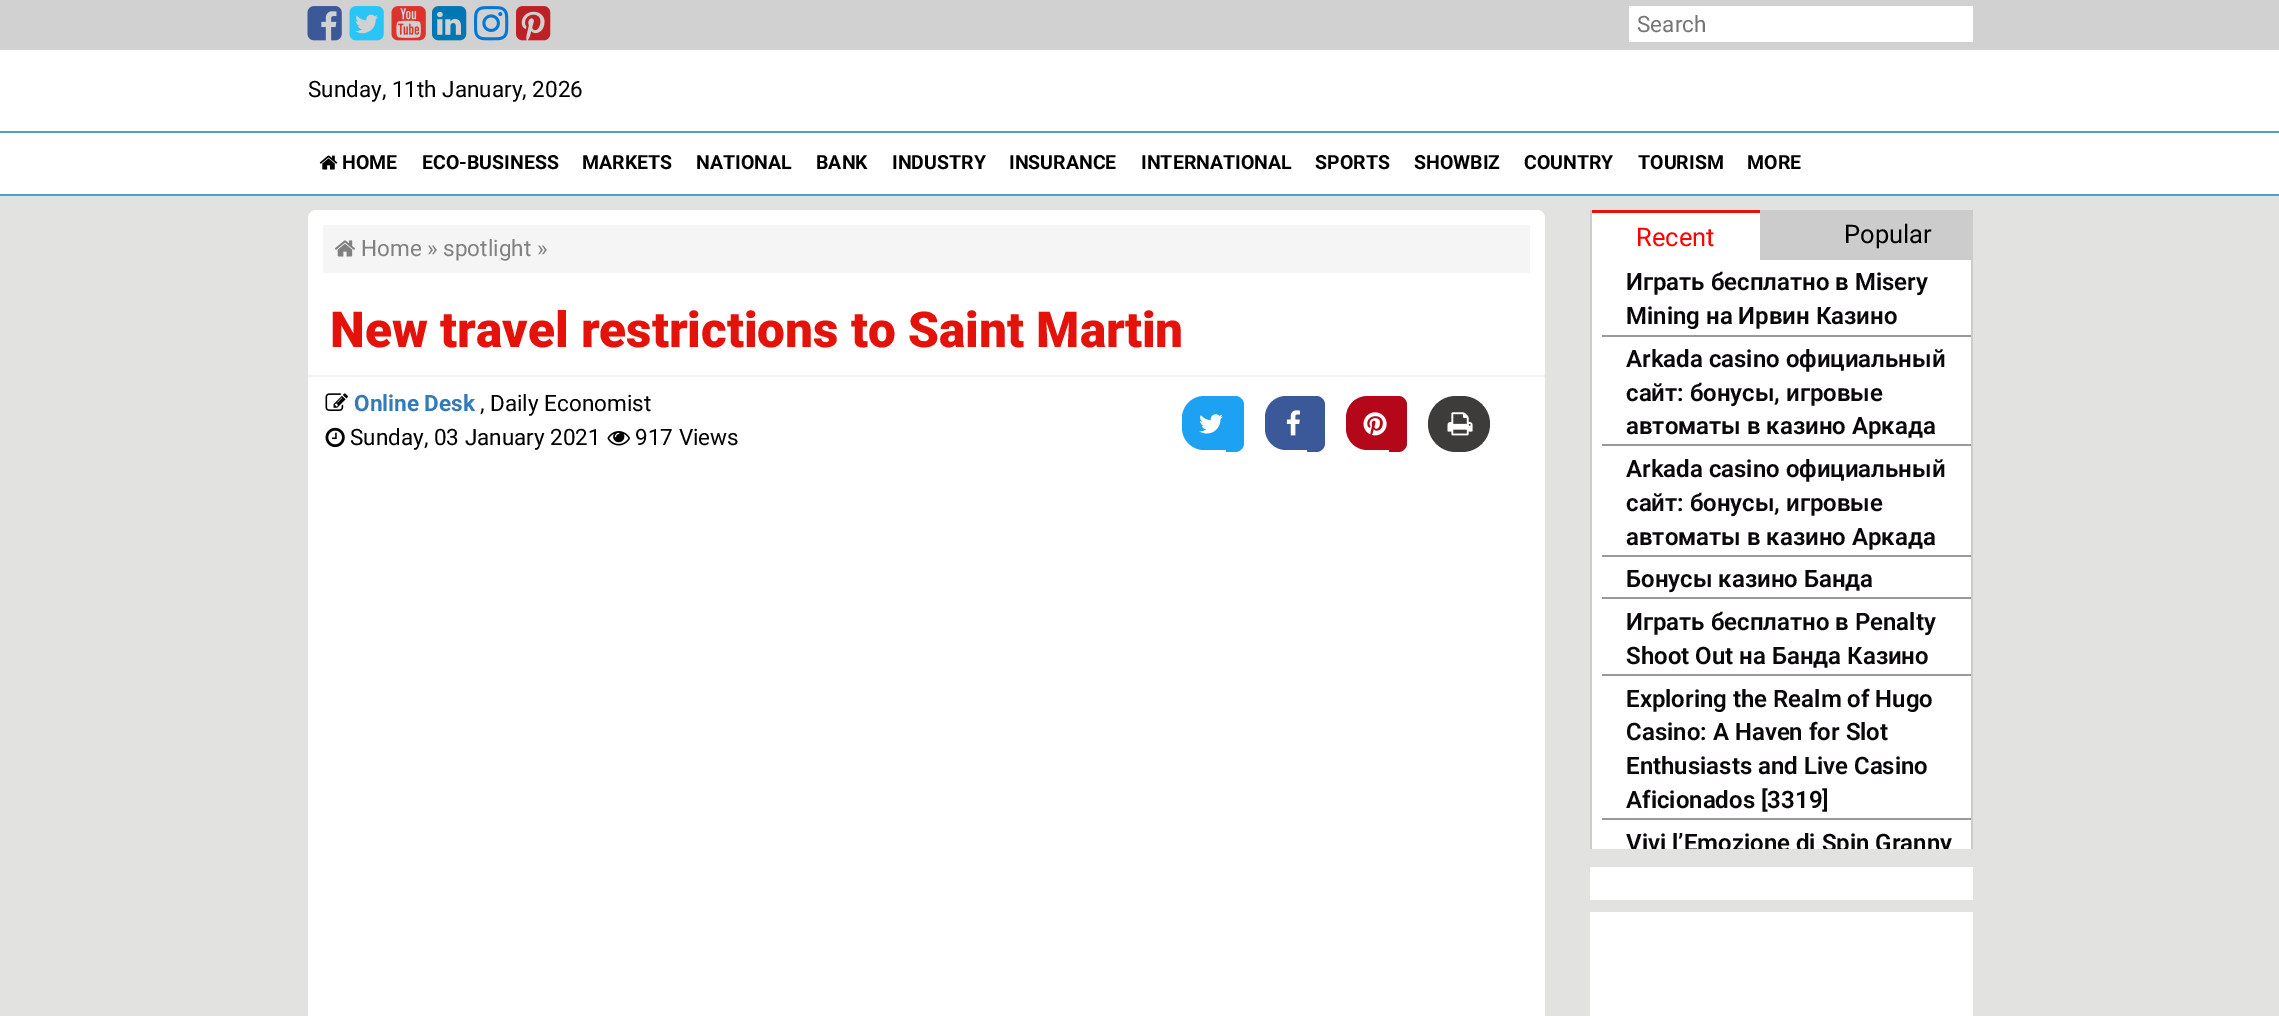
%!PS
<< /PageSize [2279 1016] >> setpagedevice
/rgb { dup -16 bitshift 255 div exch dup -8 bitshift 255 and 255 div exch 255 and 255 div setrgbcolor } def
/font { [ exch dup neg 0 0 3 -1 roll 0 0 ] selectfont } def
/text { moveto show } def
/roundrect { 5 dict begin { /r /h /w /y /x } { exch def } forall
  x r add y moveto x w add y 2 copy h add r arct x w add y h add x 1 index r arct
  x y h add x y r arct x y 2 copy exch w add exch r arct closepath end } def
/picture { 5 dict begin { /h /w /y /x /name } { exch def } forall
  gsave x y translate w h scale
  w h 8 [w 0 0 h 0 0] name (r) file false 3 colorimage grestore end } def
0 1016 translate 1 -1 scale
4 setmiterlimit
/s1 { /Roboto-Regular 22.5 font 16#757575 rgb } def
/s2 { /Roboto-Regular 22.5 font 16#000000 rgb } def
/s3 { /Roboto-Bold 19.5 font 16#000000 rgb } def
/s4 { /Roboto-Regular 22.5 font 16#828181 rgb } def
/s5 { /Roboto-Black 49.5 font 16#E3120B rgb } def
/s6 { /Roboto-Bold 22.5 font 16#337AB7 rgb } def
/s7 { /Roboto-Regular 25.5 font 16#FF0000 rgb } def
/s8 { /Roboto-Regular 25.5 font 16#000000 rgb } def
/s9 { /Roboto-SemiBold 24 font 16#09070A rgb } def
16#E2E2E1 rgb
0 0 2279 1016 rectfill
16#D1D1D1 rgb
0 0 2279 50 rectfill
(pic1.raw) 307 6 35 35 picture
(pic2.raw) 349 6 35 35 picture
(pic3.raw) 391 6 35 35 picture
(pic4.raw) 432 6 35 35 picture
(pic5.raw) 474 6 35 35 picture
(pic6.raw) 516 6 35 35 picture
16#FFFFFF rgb
1629 6 344 36 rectfill
s1
(Search) 1637 32 text
16#FFFFFF rgb
0 50 2279 81 rectfill
s2
(Sunday, 11th January, 2026) 308 97 text
16#FFFFFF rgb
0 133 2279 61 rectfill
16#4F9EC8 rgb
0 131 2279 2 rectfill
0 194 2279 2 rectfill
(pic7.raw) 319 155 19 15 picture
s3
(HOME) 342 169 text
(ECO-BUSINESS) 422 169 text
(MARKETS) 582 169 text
(NATIONAL) 696 169 text
(BANK) 816 169 text
(INDUSTRY) 892 169 text
(INSURANCE) 1009 169 text
(INTERNATIONAL) 1141 169 text
(SPORTS) 1315 169 text
(SHOWBIZ) 1414 169 text
(COUNTRY) 1524 169 text
(TOURISM) 1638 169 text
(MORE) 1747 169 text
16#FFFFFF rgb
308 210 1237 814 8 roundrect fill
16#F5F5F5 rgb
323 225 1207 48 rectfill
(pic8.raw) 334 240 21 17 picture
s4
(Home » spotlight ») 361 256 text
s5
(New travel restrictions to Saint Martin) 330 347 text
16#F3F3F3 rgb
308 375 1237 2 rectfill
(pic9.raw) 325 393 23 18 picture
s6
(Online Desk) 354 411 text
s2
(, Daily Economist) 480 411 text
(pic10.raw) 325 427 20 21 picture
(Sunday, 03 January 2021) 350 445 text
(pic11.raw) 607 431 23 15 picture
(917 Views) 635 445 text
16#1DA1F2 rgb
1204 396 moveto 1226 396 lineto 1226 450 lineto 1204 450 lineto 1192 450 1182 440 1182 428 curveto 1182 418 lineto 1182 406 1192 396 1204 396 curveto closepath fill
1226 396 moveto 1235 396 lineto 1240 396 1244 400 1244 405 curveto 1244 443 lineto 1244 448 1240 452 1235 452 curveto 1226 452 lineto closepath fill
(pic12.raw) 1199 414 24 20 picture
16#3B5998 rgb
1286 396 moveto 1307 396 lineto 1307 450 lineto 1286 450 lineto 1274.5 450 1265 440.5 1265 429 curveto 1265 417 lineto 1265 405.5 1274.5 396 1286 396 curveto closepath fill
1307 396 moveto 1316 396 lineto 1321 396 1325 400 1325 405 curveto 1325 443 lineto 1325 448 1321 452 1316 452 curveto 1307 452 lineto closepath fill
(pic13.raw) 1286 410 14 26 picture
16#B5071A rgb
1367.5 396 moveto 1389 396 lineto 1389 450 lineto 1367.5 450 lineto 1355.5 450 1346 440.5 1346 428.5 curveto 1346 417.5 lineto 1346 405.5 1355.5 396 1367.5 396 curveto closepath fill
1389 396 moveto 1398 396 lineto 1403 396 1407 400 1407 405 curveto 1407 443 lineto 1407 448 1403 452 1398 452 curveto 1389 452 lineto closepath fill
(pic14.raw) 1363 412 24 24 picture
16#3E3B3B rgb
1428 396 62 56 28 roundrect fill
(pic15.raw) 1447 412 26 24 picture
16#FFFFFF rgb
1592 260 379 589 rectfill
16#CCCCCC rgb
1971 210 2 639 rectfill
1590 210 2 639 rectfill
1760 210 211 50 rectfill
16#FFFFFF rgb
1592 213 168 47 rectfill
16#E3120B rgb
1592 210 168 3 rectfill
s7
(Recent) 1636 246 text
s8
(Popular) 1844 243 text
16#999999 rgb
1602 335 369 2 rectfill
s9
(Играть бесплатно в Misery) 1626 290 text
(Mining на Ирвин Казино) 1626 324 text
16#999999 rgb
1602 444 369 2 rectfill
s9
(Arkada casino официальный) 1626 367 text
(сайт: бонусы, игровые) 1626 401 text
(автоматы в казино Аркада) 1626 434 text
16#999999 rgb
1602 555 369 2 rectfill
s9
(Arkada casino официальный) 1626 477 text
(сайт: бонусы, игровые) 1626 511 text
(автоматы в казино Аркада) 1626 545 text
16#999999 rgb
1602 597 369 2 rectfill
s9
(Бонусы казино Банда) 1626 587 text
16#999999 rgb
1602 674 369 2 rectfill
s9
(Играть бесплатно в Penalty) 1626 630 text
(Shoot Out на Банда Казино) 1626 664 text
16#999999 rgb
1602 818 369 2 rectfill
s9
(Exploring the Realm of Hugo) 1626 707 text
(Casino: A Haven for Slot) 1626 740 text
(Enthusiasts and Live Casino) 1626 774 text
(Aficionados [3319]) 1626 808 text
gsave
1602 260 369 589 rectclip
(Vivi l’Emozione di Spin Granny) 1626 851 text
grestore
16#FFFFFF rgb
1590 867 383 33 rectfill
1590 912 383 104 rectfill
showpage
